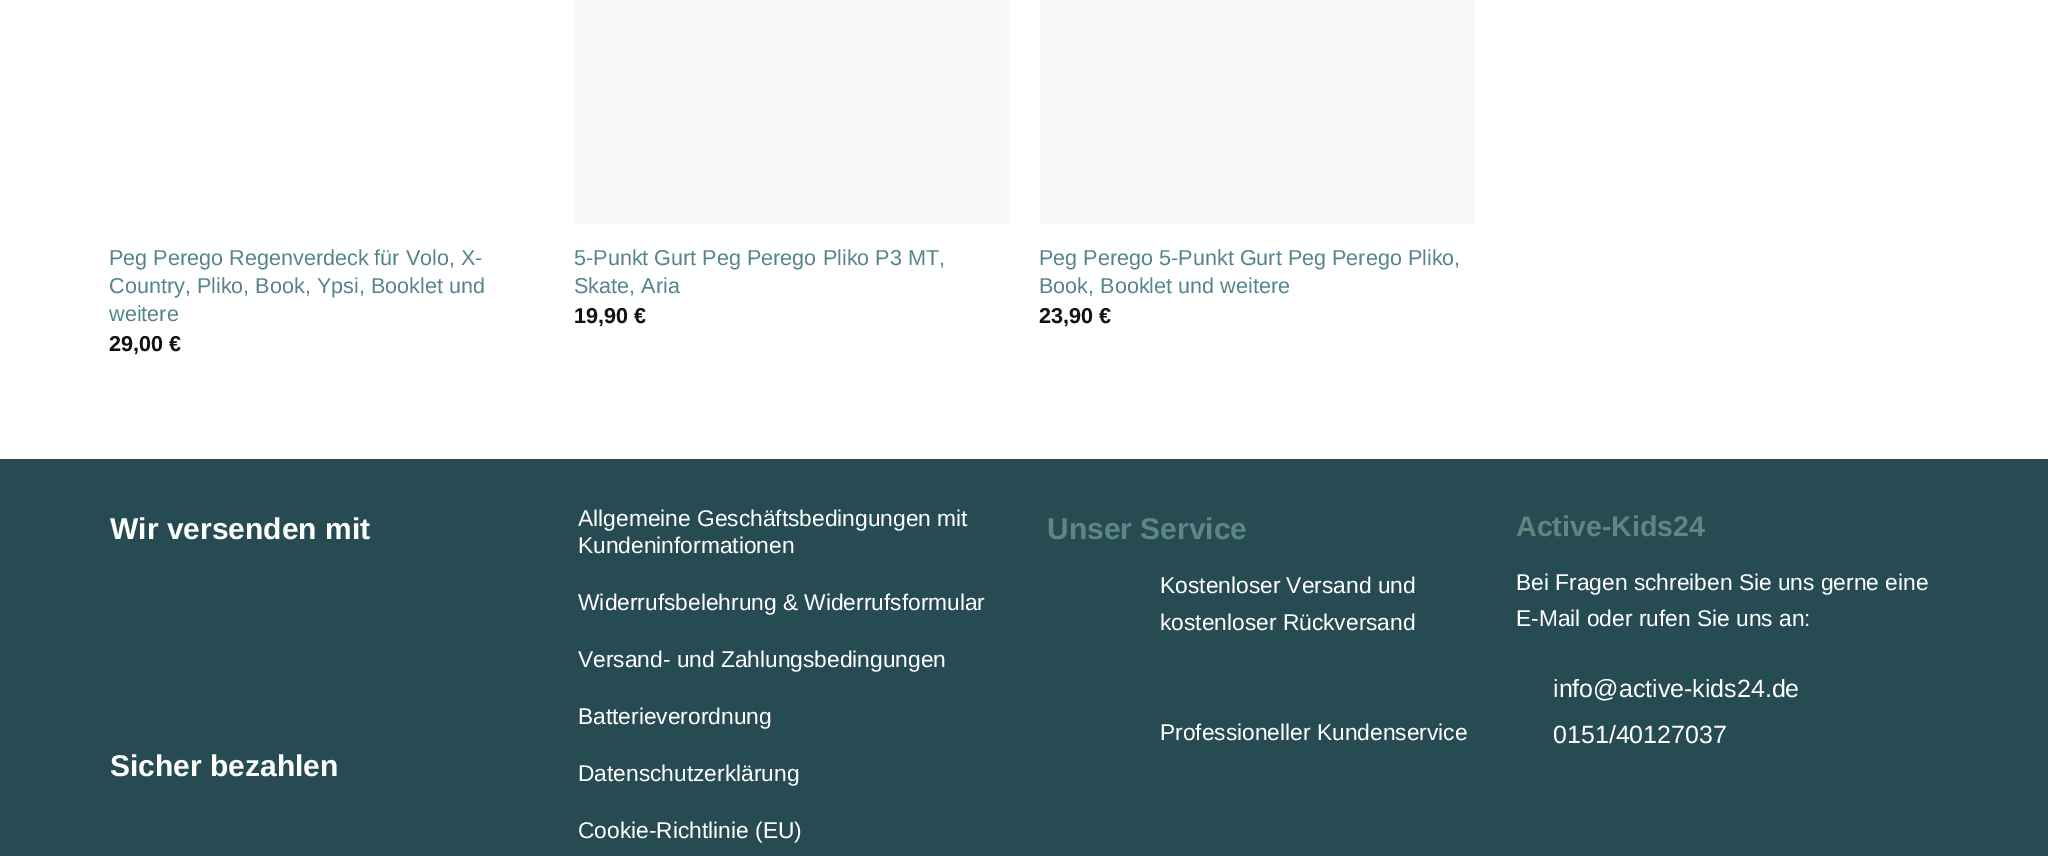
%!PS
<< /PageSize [2048 856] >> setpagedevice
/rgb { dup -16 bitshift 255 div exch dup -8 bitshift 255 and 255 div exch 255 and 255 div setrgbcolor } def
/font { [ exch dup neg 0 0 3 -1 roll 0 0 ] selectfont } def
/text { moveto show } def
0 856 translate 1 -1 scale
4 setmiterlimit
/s1 { /LiberationSans-Regular 21.6 font 16#54858A rgb } def
/s2 { /LiberationSans-Bold 21.6 font 16#111111 rgb } def
/s3 { /LiberationSans-Bold 30 font 16#FFFFFF rgb } def
/s4 { /LiberationSans-Regular 22.75 font 16#FFFFFF rgb } def
/s5 { /LiberationSans-Bold 30 font 16#5D8783 rgb } def
/s6 { /LiberationSans-Bold 28.5 font 16#5D8783 rgb } def
/s7 { /LiberationSans-Regular 25 font 16#FFFFFF rgb } def
16#FFFFFF rgb
0 0 2048 856 rectfill
s1
(Peg Perego Regenverdeck für Volo, X-) 109 265 text
(Country, Pliko, Book, Ypsi, Booklet und) 109 293 text
(weitere) 109 321 text
s2
(29,00 €) 109 351 text
16#F8F8F8 rgb
575 0 435 224 rectfill
s1
(5-Punkt Gurt Peg Perego Pliko P3 MT,) 574 265 text
(Skate, Aria) 574 293 text
s2
(19,90 €) 574 323 text
16#F8F8F8 rgb
1040 0 435 224 rectfill
s1
(Peg Perego 5-Punkt Gurt Peg Perego Pliko,) 1039 265 text
(Book, Booklet und weitere) 1039 293 text
s2
(23,90 €) 1039 323 text
16#264B52 rgb
0 459 2048 397 rectfill
s3
(Wir versenden mit) 110 539 text
(Sicher bezahlen) 110 776 text
s4
(Allgemeine Geschäftsbedingungen mit) 578 526 text
(Kundeninformationen) 578 553 text
(Widerrufsbelehrung & Widerrufsformular) 578 610 text
(Versand- und Zahlungsbedingungen) 578 667 text
(Batterieverordnung) 578 724 text
(Datenschutzerklärung) 578 781 text
(Cookie-Richtlinie \(EU\)) 578 838 text
s5
(Unser Service) 1047 539 text
s4
(Kostenloser Versand und) 1160 593 text
(kostenloser Rückversand) 1160 630 text
(Professioneller Kundenservice) 1160 740 text
s6
(Active-Kids24) 1516 536 text
s4
(Bei Fragen schreiben Sie uns gerne eine) 1516 590 text
(E-Mail oder rufen Sie uns an:) 1516 626 text
s7
(info@active-kids24.de) 1553 697 text
(0151/40127037) 1553 743 text
showpage
